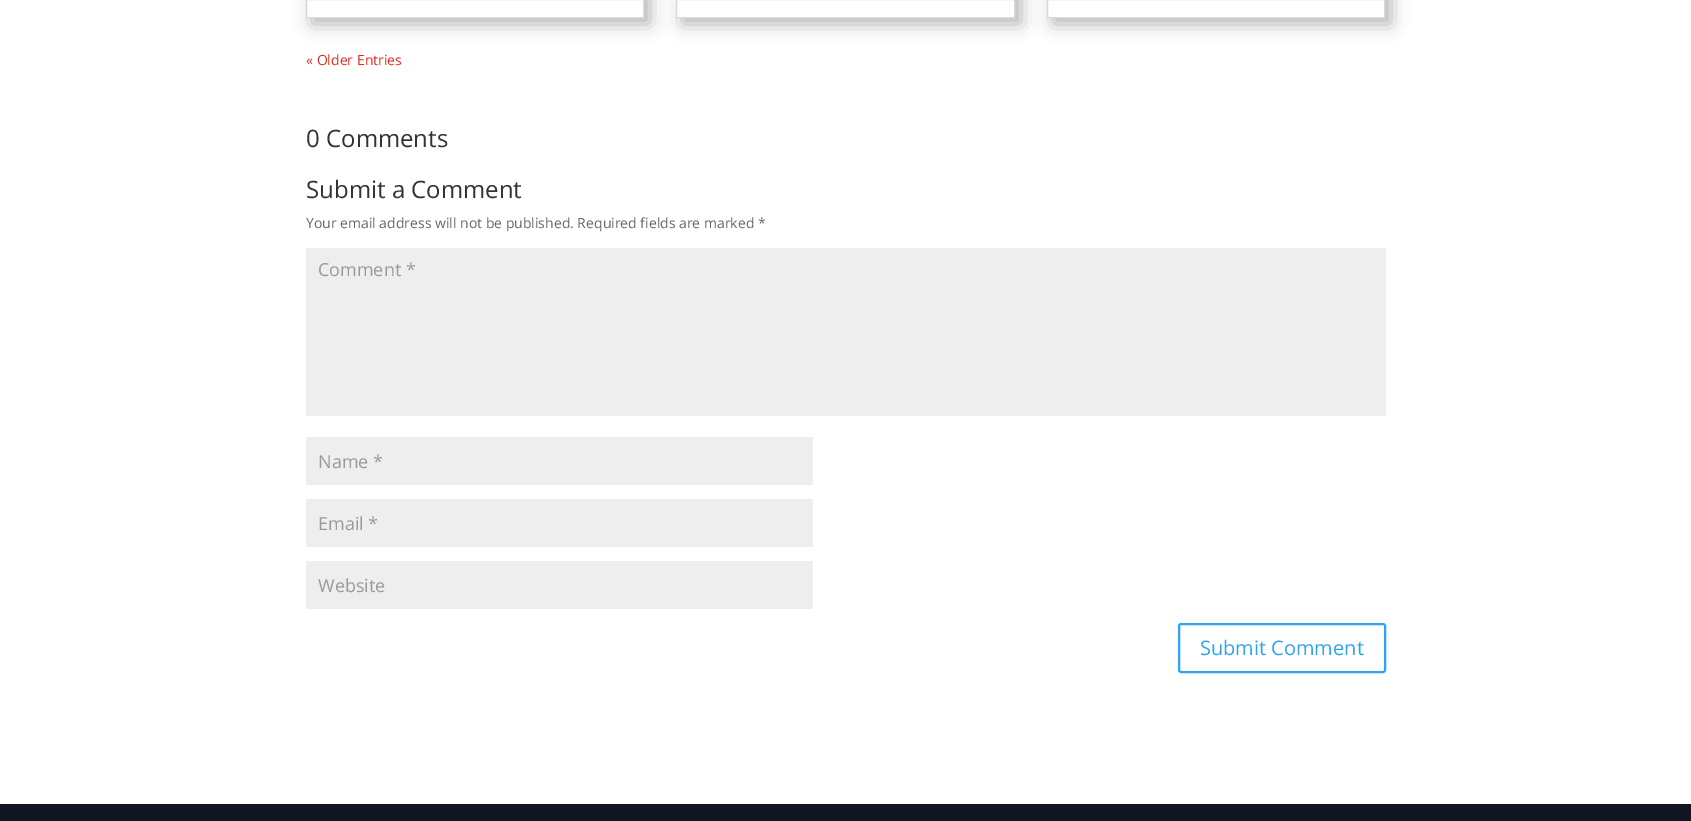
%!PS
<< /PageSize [1691 821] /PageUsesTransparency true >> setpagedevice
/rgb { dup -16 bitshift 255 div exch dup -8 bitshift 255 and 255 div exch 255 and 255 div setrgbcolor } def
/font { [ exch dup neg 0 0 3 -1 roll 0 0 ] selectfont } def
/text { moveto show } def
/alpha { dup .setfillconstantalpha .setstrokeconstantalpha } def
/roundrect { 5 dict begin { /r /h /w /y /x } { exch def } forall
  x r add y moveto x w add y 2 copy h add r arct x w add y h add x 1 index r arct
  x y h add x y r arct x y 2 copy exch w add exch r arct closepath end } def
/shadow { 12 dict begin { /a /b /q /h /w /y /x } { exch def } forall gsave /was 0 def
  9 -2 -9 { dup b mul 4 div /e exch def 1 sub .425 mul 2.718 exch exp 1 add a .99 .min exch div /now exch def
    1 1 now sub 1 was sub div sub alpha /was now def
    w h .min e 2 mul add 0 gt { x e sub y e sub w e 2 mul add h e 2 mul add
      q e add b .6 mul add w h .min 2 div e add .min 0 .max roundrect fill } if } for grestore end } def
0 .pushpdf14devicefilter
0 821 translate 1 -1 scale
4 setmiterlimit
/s1 { /OpenSans-Regular 14 font 16#E02B20 rgb } def
/s2 { /OpenSans-Regular 24 font 16#333333 rgb } def
/s3 { /OpenSans-Regular 14 font 16#666666 rgb } def
/s4 { /OpenSans-Regular 18 font 16#999999 rgb } def
/s5 { /OpenSans-Regular 20 font 16#2EA3F2 rgb } def
16#FFFFFF rgb
0 0 1691 821 rectfill
gsave
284 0 moveto 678 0 lineto 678 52 lineto 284 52 lineto closepath 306 -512 moveto 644 -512 lineto 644 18 lineto 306 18 lineto closepath eoclip newpath
16#000000 rgb
312 -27 338 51 0 9 0.3 shadow
grestore
16#D8D8D8 rgb
306.5 -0.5 337 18 rectstroke
gsave
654 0 moveto 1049 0 lineto 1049 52 lineto 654 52 lineto closepath 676 -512 moveto 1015 -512 lineto 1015 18 lineto 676 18 lineto closepath eoclip newpath
16#000000 rgb
682 -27 339 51 0 9 0.3 shadow
grestore
676.5 -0.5 338 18 rectstroke
gsave
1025 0 moveto 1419 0 lineto 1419 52 lineto 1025 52 lineto closepath 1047 -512 moveto 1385 -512 lineto 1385 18 lineto 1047 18 lineto closepath eoclip newpath
16#000000 rgb
1053 -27 338 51 0 9 0.3 shadow
grestore
1047.5 -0.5 337 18 rectstroke
s1
(« Older Entries) 306 65 text
s2
(0 Comments) 306 147 text
(Submit a Comment) 306 198 text
s3
(Your email address will not be published. Required fields are marked *) 306 228 text
16#EEEEEE rgb
306 248 1080 168 rectfill
s4
(Comment *) 318 276 text
16#EEEEEE rgb
306 437 507 48 rectfill
s4
(Name *) 318 468 text
16#EEEEEE rgb
306 499 507 48 rectfill
s4
(Email *) 318 530 text
16#EEEEEE rgb
306 561 507 48 rectfill
s4
(Website) 318 592 text
16#2EA3F2 rgb
2 setlinewidth
1179 624 206 48 2 roundrect stroke
s5
(Submit Comment) 1200 655 text
16#101622 rgb
0 804 1691 17 rectfill
.poppdf14devicefilter showpage
